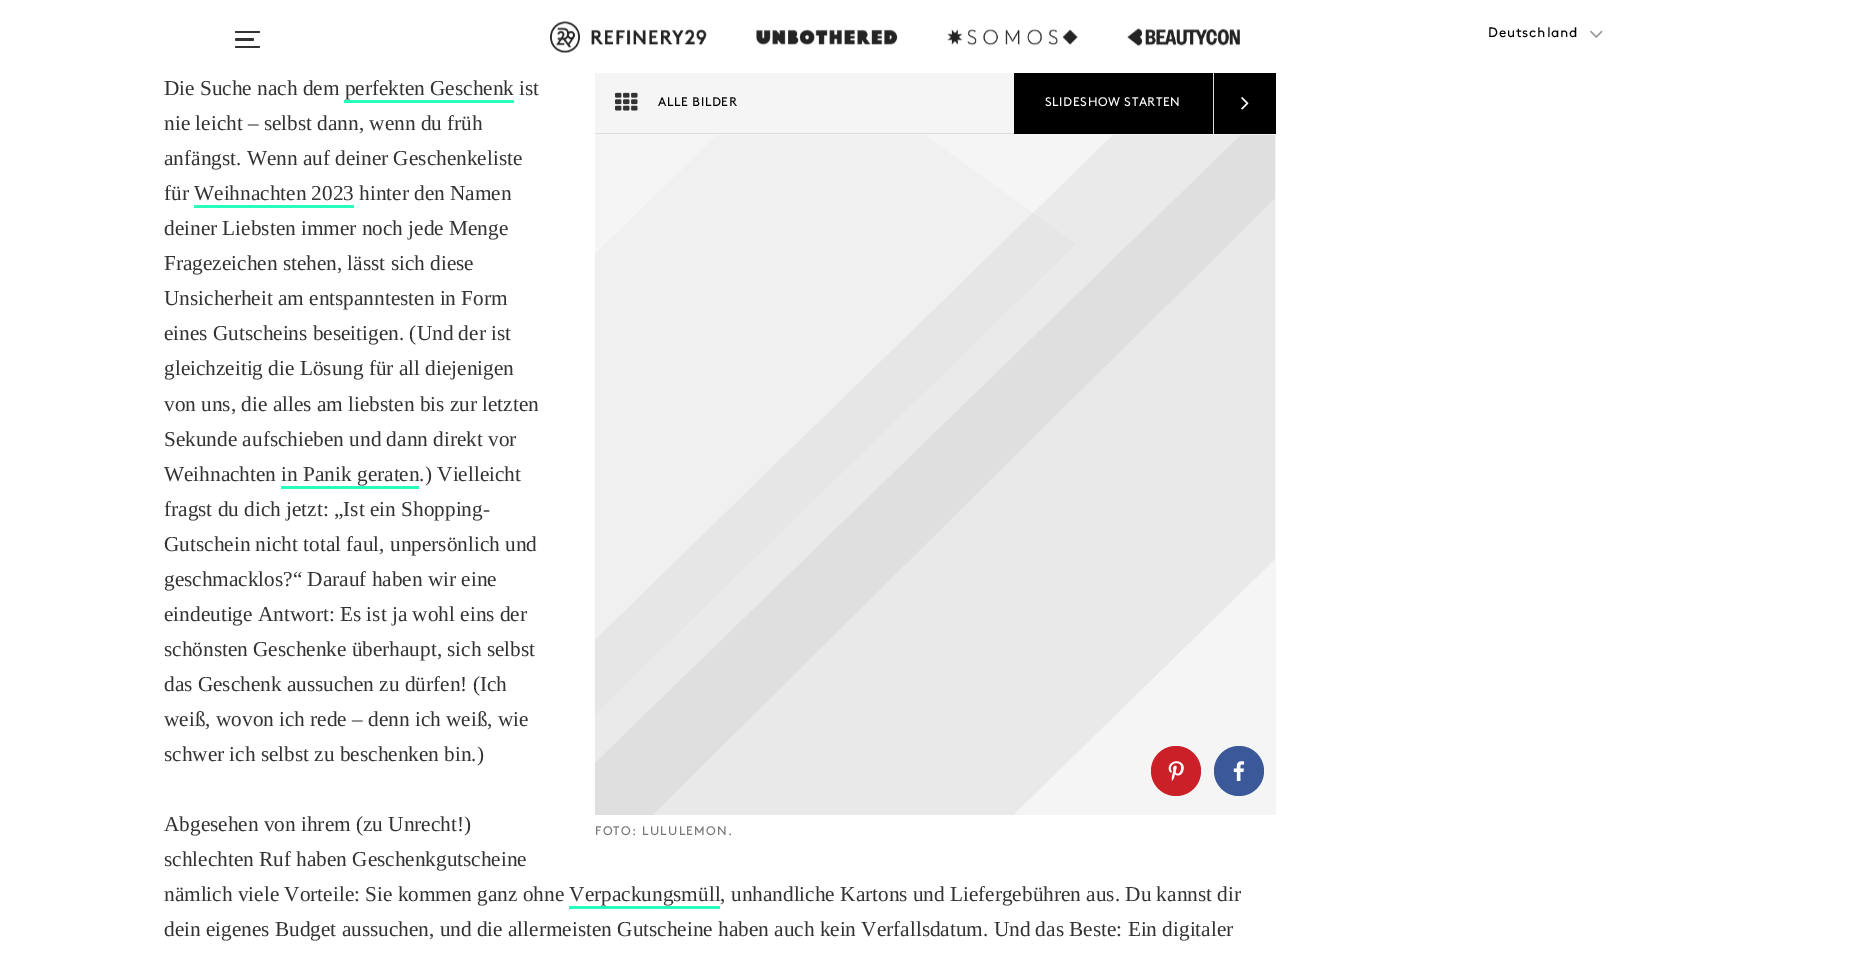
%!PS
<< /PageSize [1864 965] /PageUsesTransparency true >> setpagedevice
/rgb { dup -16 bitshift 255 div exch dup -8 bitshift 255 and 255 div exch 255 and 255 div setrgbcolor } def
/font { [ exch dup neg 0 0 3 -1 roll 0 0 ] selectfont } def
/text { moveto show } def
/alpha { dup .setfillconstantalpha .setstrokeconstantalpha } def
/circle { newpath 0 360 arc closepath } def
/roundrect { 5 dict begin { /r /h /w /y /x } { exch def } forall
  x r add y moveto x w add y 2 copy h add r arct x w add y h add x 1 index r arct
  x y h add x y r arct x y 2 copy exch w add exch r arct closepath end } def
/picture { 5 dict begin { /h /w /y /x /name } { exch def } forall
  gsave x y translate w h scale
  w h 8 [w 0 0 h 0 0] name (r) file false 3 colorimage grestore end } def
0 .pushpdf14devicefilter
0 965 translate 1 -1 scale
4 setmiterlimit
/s1 { /LiberationSerif-Regular 21.25 font 16#333333 rgb } def
16#FFFFFF rgb
0 0 1864 965 rectfill
16#DCDCDC rgb
1213 71 1 63 rectfill
16#FFFFFF rgb
1213 71 1 2 rectfill
16#333333 rgb
235 31 25 2 1 roundrect fill
235 38 19 3 1.5 roundrect fill
235 46 25 2 1 roundrect fill
(pic1.raw) 550 21 157 32 picture
(pic2.raw) 756 29 142 16 picture
(pic3.raw) 947 29 131 17 picture
(pic4.raw) 1127 28 113 19 picture
/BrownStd-Regular 13.75 font
16#000000 rgb
1488 37 moveto 0.75 0 (Deutschland) ashow
(pic5.raw) 1590 30 13 8 picture
s1
(Die Suche nach dem perfekten Geschenk ist) 164 95 text
16#27FFBC rgb
344 100 170 3 rectfill
s1
(nie leicht – selbst dann, wenn du früh) 164 130 text
(anfängst. Wenn auf deiner Geschenkeliste) 164 165 text
(für Weihnachten 2023 hinter den Namen) 164 200 text
16#27FFBC rgb
194 205 160 3 rectfill
s1
(deiner Liebsten immer noch jede Menge) 164 235 text
(Fragezeichen stehen, lässt sich diese) 164 270 text
(Unsicherheit am entspanntesten in Form) 164 305 text
(eines Gutscheins beseitigen. \(Und der ist) 164 340 text
(gleichzeitig die Lösung für all diejenigen) 164 375 text
(von uns, die alles am liebsten bis zur letzten) 164 411 text
(Sekunde aufschieben und dann direkt vor) 164 446 text
(Weihnachten in Panik geraten.\) Vielleicht) 164 481 text
16#27FFBC rgb
281 486 138 3 rectfill
s1
(fragst du dich jetzt: „Ist ein Shopping-) 164 516 text
(Gutschein nicht total faul, unpersönlich und) 164 551 text
(geschmacklos?“ Darauf haben wir eine) 164 586 text
(eindeutige Antwort: Es ist ja wohl eins der) 164 621 text
(schönsten Geschenke überhaupt, sich selbst) 164 656 text
(das Geschenk aussuchen zu dürfen! \(Ich) 164 691 text
(weiß, wovon ich rede – denn ich weiß, wie) 164 726 text
(schwer ich selbst zu beschenken bin.\)) 164 761 text
(Abgesehen von ihrem \(zu Unrecht!\)) 164 831 text
(schlechten Ruf haben Geschenkgutscheine) 164 866 text
(nämlich viele Vorteile: Sie kommen ganz ohne Verpackungsmüll, unhandliche Kartons und Liefergebühren aus. Du kannst dir) 164 901 text
16#27FFBC rgb
569 906 151 3 rectfill
s1
(dein eigenes Budget aussuchen, und die allermeisten Gutscheine haben auch kein Verfallsdatum. Und das Beste: Ein digitaler) 164 936 text
16#F5F5F5 rgb
595 73 419 60 rectfill
16#DCDCDC rgb
595 133 419 1 rectfill
(pic6.raw) 615 92 23 19 picture
/BrownStd-Regular 12.5 font
16#000000 rgb
658 106 moveto 0.6 0 (ALLE BILDER) ashow
1014 73 199 61 rectfill
16#FFFFFF rgb
1045 106 moveto 0.6 0 (SLIDESHOW STARTEN) ashow
16#000000 rgb
1214 73 62 61 rectfill
(pic7.raw) 1241 97 8 13 picture
16#F5F5F5 rgb
595 134 681 681 rectfill
gsave
595 134 681 681 rectclip
16#E9E9E9 rgb
872 953 moveto 742 953 lineto 594 843 lineto 594 764 lineto 1241 135 lineto 1275 135 lineto 1275 559 lineto closepath fill
0.09 alpha
16#7A7A7A rgb
1275 198 moveto 594 873 lineto 594 641 lineto 1113 135 lineto 1275 135 lineto closepath fill
grestore
0.04 alpha
16#7A7A7A rgb
925 135 moveto 1076 244 lineto 594 715 lineto 594 255 lineto 717 135 lineto closepath fill
1 alpha
16#CB2027 rgb
1176 771 25 circle fill
(pic8.raw) 1168 761 16 20 picture
16#3B5998 rgb
1239 771 25 circle fill
(pic9.raw) 1233 761 12 20 picture
16#787679 rgb
595 835 moveto 1.25 0 (FOTO: LULULEMON.) ashow
.poppdf14devicefilter showpage
